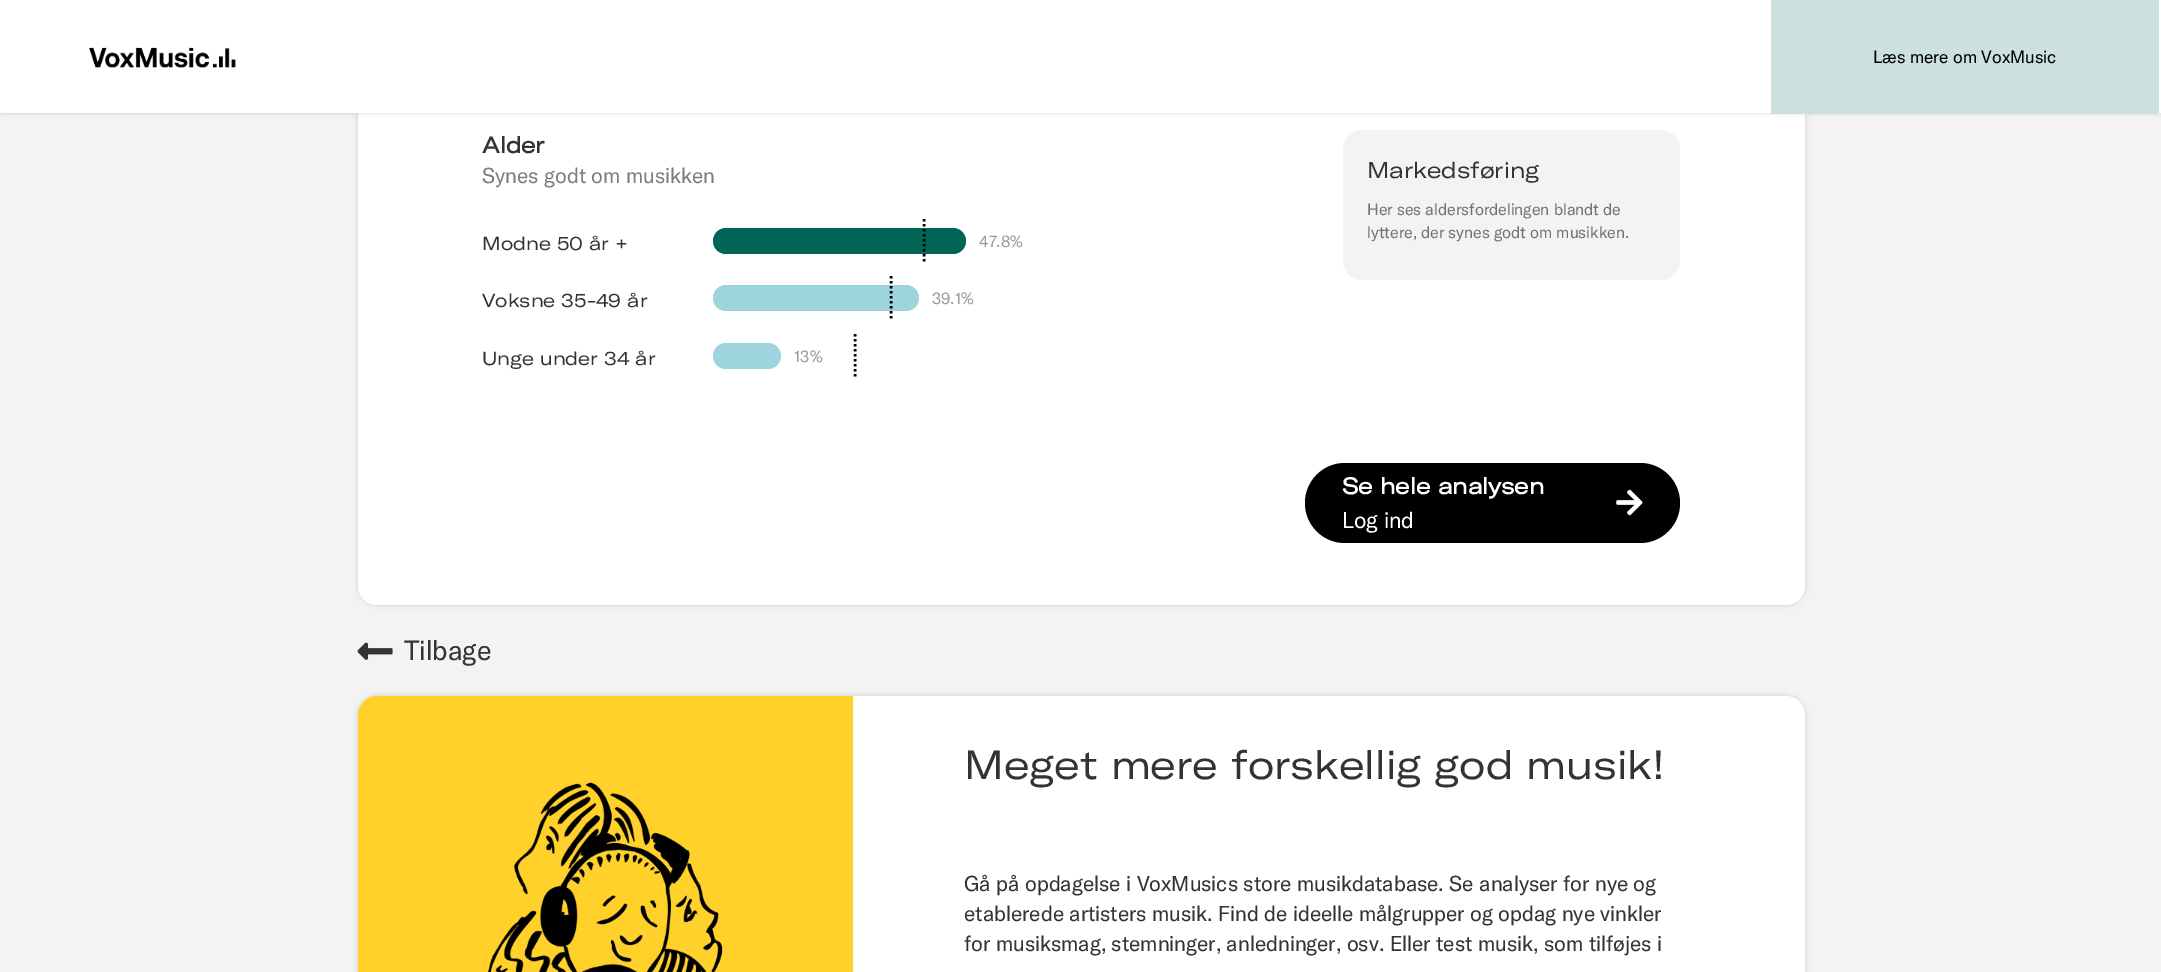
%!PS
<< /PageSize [2161 972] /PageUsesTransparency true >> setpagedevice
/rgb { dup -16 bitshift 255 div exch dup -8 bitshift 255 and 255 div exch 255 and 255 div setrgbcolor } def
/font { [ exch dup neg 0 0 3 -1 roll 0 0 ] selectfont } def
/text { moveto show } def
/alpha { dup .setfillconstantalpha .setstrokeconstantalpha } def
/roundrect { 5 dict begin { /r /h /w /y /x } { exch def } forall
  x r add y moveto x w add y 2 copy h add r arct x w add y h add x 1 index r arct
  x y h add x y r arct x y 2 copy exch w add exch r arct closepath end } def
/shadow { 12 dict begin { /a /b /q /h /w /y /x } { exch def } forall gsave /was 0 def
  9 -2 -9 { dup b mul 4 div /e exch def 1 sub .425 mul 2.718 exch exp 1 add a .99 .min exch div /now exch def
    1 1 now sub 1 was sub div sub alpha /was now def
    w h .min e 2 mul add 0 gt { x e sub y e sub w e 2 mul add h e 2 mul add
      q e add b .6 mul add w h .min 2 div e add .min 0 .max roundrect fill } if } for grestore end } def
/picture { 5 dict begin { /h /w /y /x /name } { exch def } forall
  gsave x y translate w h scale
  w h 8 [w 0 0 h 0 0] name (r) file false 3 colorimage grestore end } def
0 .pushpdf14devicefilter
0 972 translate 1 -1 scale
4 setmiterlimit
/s1 { /GTAmerica-Regular 17.5 font 16#000000 rgb } def
/s2 { /GTAmerica-Bold 22.5 font 16#333333 rgb } def
/s3 { /GTAmerica-Regular 21.25 font 16#7D7D7D rgb } def
/s4 { /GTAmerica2-Regular 18.75 font 16#333333 rgb } def
/s5 { /GTAmerica-Regular 16.25 font 16#999999 rgb } def
/s6 { /GTAmerica2-Regular 22.5 font 16#333333 rgb } def
/s7 { /GTAmerica-Regular 16.25 font 16#747474 rgb } def
/s8 { /GTAmerica-Bold 22.5 font 16#FFFFFF rgb } def
/s9 { /GTAmerica-Regular 22.5 font 16#FFFFFF rgb } def
/s10 { /GTAmerica-Regular 27.5 font 16#333333 rgb } def
/s11 { /GTAmerica2-Regular 40 font 16#333333 rgb } def
/s12 { /GTAmerica-Regular 21.25 font 16#333333 rgb } def
16#F3F3F1 rgb
0 0 2161 972 rectfill
16#000000 rgb
358 -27 1447 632 19 2.5 0.15 shadow
16#FFFFFF rgb
358 -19 1447 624 19 roundrect fill
16#000000 rgb
0 1 2161 113 0 2 0.1 shadow
16#FFFFFF rgb
0 0 2161 113 rectfill
(pic1.raw) 88 47 148 21 picture
16#CCE0DD rgb
1771 0 388 114 rectfill
s1
(Læs mere om VoxMusic) 1873 63 text
s2
(Alder) 482 153 text
s3
(Synes godt om musikken) 482 183 text
s4
(Modne 50 år +) 482 250 text
16#006555 rgb
713 228 253 26 13 roundrect fill
16#000000 rgb
2.5 setlinewidth
[2.5 2.5] 0 setdash
924 219 moveto 924 262.5 lineto stroke
s5
(47.8%) 979 247 text
s4
(Voksne 35-49 år) 482 307 text
16#9ED4DB rgb
713 285 206 26 13 roundrect fill
16#000000 rgb
891 276 moveto 891 320 lineto stroke
s5
(39.1%) 932 304 text
s4
(Unge under 34 år) 482 365 text
16#9ED4DB rgb
713 343 68 26 13 roundrect fill
s5
(13%) 794 362 text
16#000000 rgb
855 334 moveto 855 377.5 lineto stroke
16#F3F3F1 rgb
1343 130 337 150 19 roundrect fill
s6
(Markedsføring) 1367 178 text
s7
(Her ses aldersfordelingen blandt de) 1367 215 text
(lyttere, der synes godt om musikken.) 1367 238 text
16#000000 rgb
1305 463 375 80 40 roundrect fill
s8
(Se hele analysen) 1342 494 text
s9
(Log ind) 1342 528 text
(pic2.raw) 1616 489 27 27 picture
(pic3.raw) 357 642 36 18 picture
s10
(Tilbage) 404 660 text
16#000000 rgb
358 696 1447 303 19 2.5 0.15 shadow
16#FFFFFF rgb
358 696 1447 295 19 roundrect fill
16#FFD12A rgb
377 696 moveto 853 696 lineto 853 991 lineto 377 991 lineto 366.5 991 358 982.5 358 972 curveto 358 715 lineto 358 704.5 366.5 696 377 696 curveto closepath fill
(pic4.raw) 488 782 235 190 picture
s11
(Meget mere forskellig god musik!) 964 779 text
s12
(Gå på opdagelse i VoxMusics store musikdatabase. Se analyser for nye og) 964 891 text
(etablerede artisters musik. Find de ideelle målgrupper og opdag nye vinkler) 964 921 text
(for musiksmag, stemninger, anledninger, osv. Eller test musik, som tilføjes i) 964 951 text
.poppdf14devicefilter showpage
